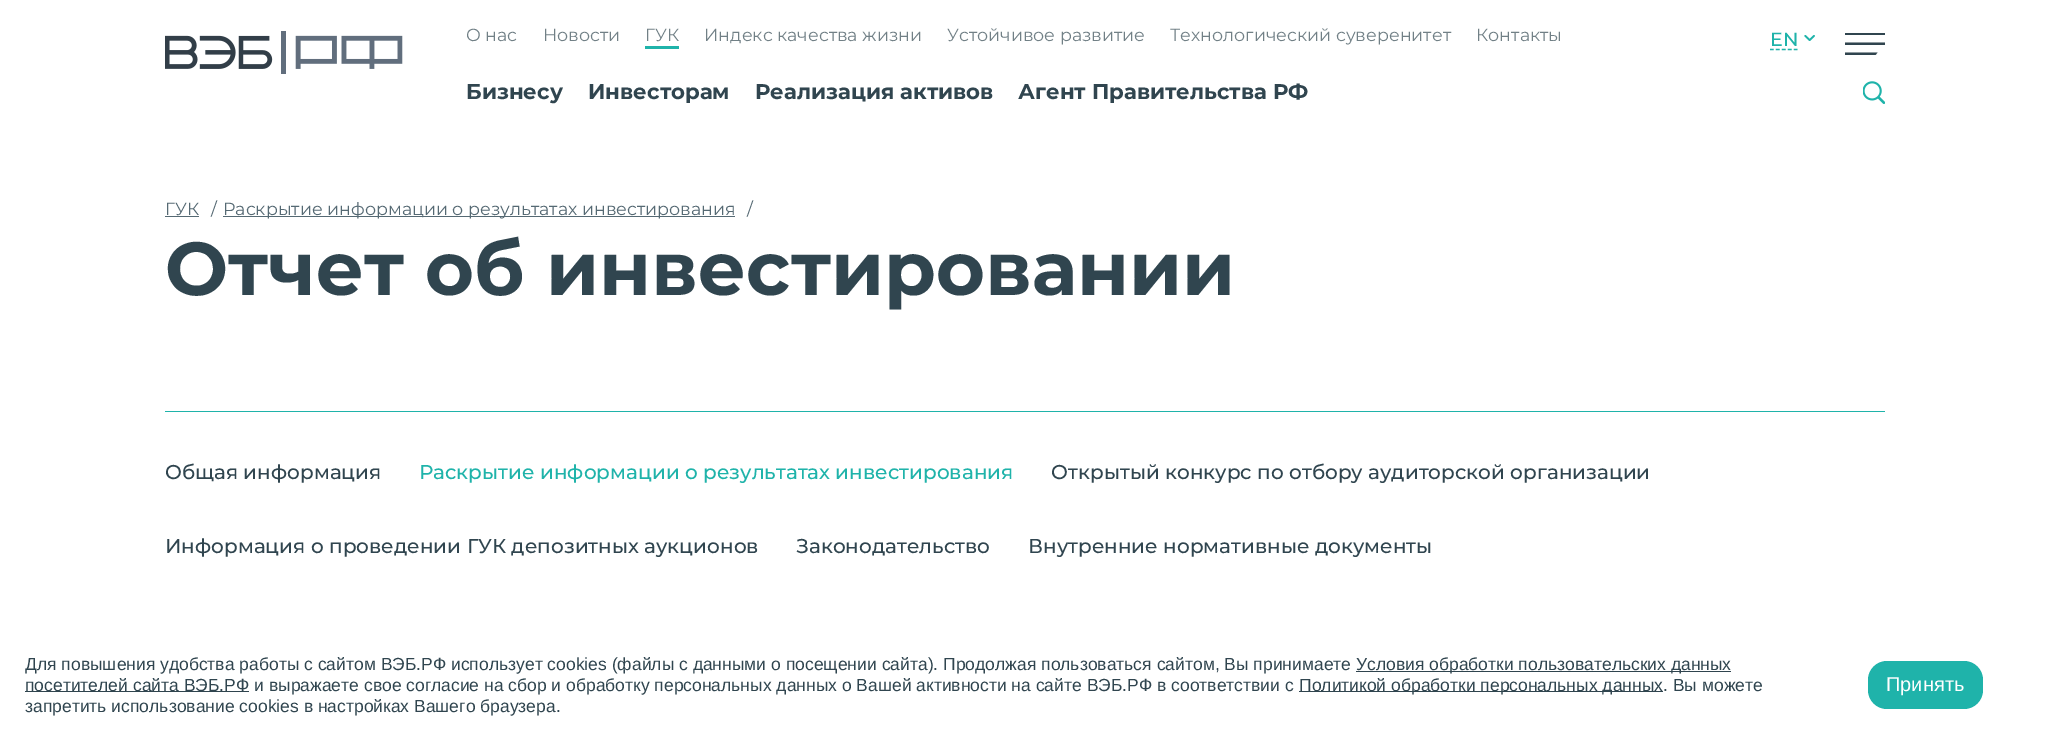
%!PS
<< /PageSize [2049 741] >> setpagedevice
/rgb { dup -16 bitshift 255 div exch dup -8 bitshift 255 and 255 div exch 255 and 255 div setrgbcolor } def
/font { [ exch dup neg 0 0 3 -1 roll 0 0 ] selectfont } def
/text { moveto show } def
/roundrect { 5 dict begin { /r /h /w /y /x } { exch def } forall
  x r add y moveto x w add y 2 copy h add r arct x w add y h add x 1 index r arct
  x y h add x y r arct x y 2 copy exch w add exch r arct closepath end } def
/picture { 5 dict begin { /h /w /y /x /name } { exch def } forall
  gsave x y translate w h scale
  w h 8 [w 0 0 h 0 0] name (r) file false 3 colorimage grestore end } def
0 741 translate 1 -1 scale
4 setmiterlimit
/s1 { /Montserrat-Regular 17.5 font 16#718086 rgb } def
/s2 { /Montserrat-Bold 21.25 font 16#30454F rgb } def
/s3 { /Montserrat-Medium 19 font 16#1FB3AA rgb } def
/s4 { /Montserrat-Regular 17.5 font 16#556973 rgb } def
/s5 { /Montserrat-Bold 75 font 16#30454F rgb } def
/s6 { /Montserrat-Medium 20 font 16#30454F rgb } def
/s7 { /Montserrat-Medium 20 font 16#1FB3AA rgb } def
/s8 { /LiberationSans-Regular 17.5 font 16#30454F rgb } def
/s9 { /LiberationSans-Regular 20 font 16#FFFFFF rgb } def
16#FFFFFF rgb
0 0 2049 741 rectfill
(pic1.raw) 165 31 238 43 picture
s1
(О нас) 466 41 text
(Новости) 543 41 text
(ГУК) 645 41 text
16#1FB3AA rgb
645 46 moveto 645 49 lineto 679 49 lineto 679 26 lineto 679 46 lineto closepath fill
s1
(Индекс качества жизни) 704 41 text
(Устойчивое развитие) 947 41 text
(Технологический суверенитет) 1170 41 text
(Контакты) 1476 41 text
s2
(Бизнесу) 466 99 text
(Инвесторам) 588 99 text
(Реализация активов) 755 99 text
(Агент Правительства РФ) 1018 99 text
16#1FB3AA rgb
1.2 setlinewidth
[3.75 2.19] 0 setdash
1770 49.5 moveto 1797.5 49.5 lineto stroke
s3
(EN) 1770 46 text
(pic2.raw) 1804 35 11 6 picture
gsave
1845 33 40 22 rectclip
16#30454F rgb
1845 45 moveto 1845 42.5 lineto 1885 42.5 lineto 1885 45 lineto closepath 1845 32.5 moveto 1885 32.5 lineto 1885 35 lineto 1845 35 lineto closepath 1875.5 55 moveto 1845 55 lineto 1845 52.5 lineto 1877.5 52.5 lineto closepath fill
grestore
(pic3.raw) 1863 81 22 23 picture
s4
(ГУК) 165 215 text
165 216 34 1 rectfill
(/) 211 215 text
223 216 512 1 rectfill
(Раскрытие информации о результатах инвестирования) 223 215 text
(/) 747 215 text
s5
(Отчет об инвестировании) 165 295 text
16#1FB3AA rgb
165 411 1720 1 rectfill
s6
(Общая информация) 165 479 text
s7
(Раскрытие информации о результатах инвестирования) 419 479 text
s6
(Открытый конкурс по отбору аудиторской организации) 1051 479 text
(Информация о проведении ГУК депозитных аукционов) 165 553 text
(Законодательство) 796 553 text
(Внутренние нормативные документы) 1028 553 text
s8
(Для повышения удобства работы с сайтом ВЭБ.РФ использует cookies \(файлы с данными о посещении сайта\). Продолжая пользоваться сайтом, Вы принимаете) 25 670 text
16#2F444E rgb
1356 671 375 1 rectfill
s8
(Условия обработки пользовательских данных) 1356 670 text
16#2F444E rgb
25 691 224 1 rectfill
s8
(посетителей сайта ВЭБ.РФ и выражаете свое согласие на сбор и обработку персональных данных о Вашей активности на сайте ВЭБ.РФ в соответствии с) 25 691 text
16#2F444E rgb
1299 691 364 1 rectfill
s8
(Политикой обработки персональных данных. Вы можете) 1299 691 text
(запретить использование cookies в настройках Вашего браузера.) 25 712 text
16#1FB3AA rgb
1868 661 115 48 19 roundrect fill
s9
(Принять) 1886 691 text
showpage
